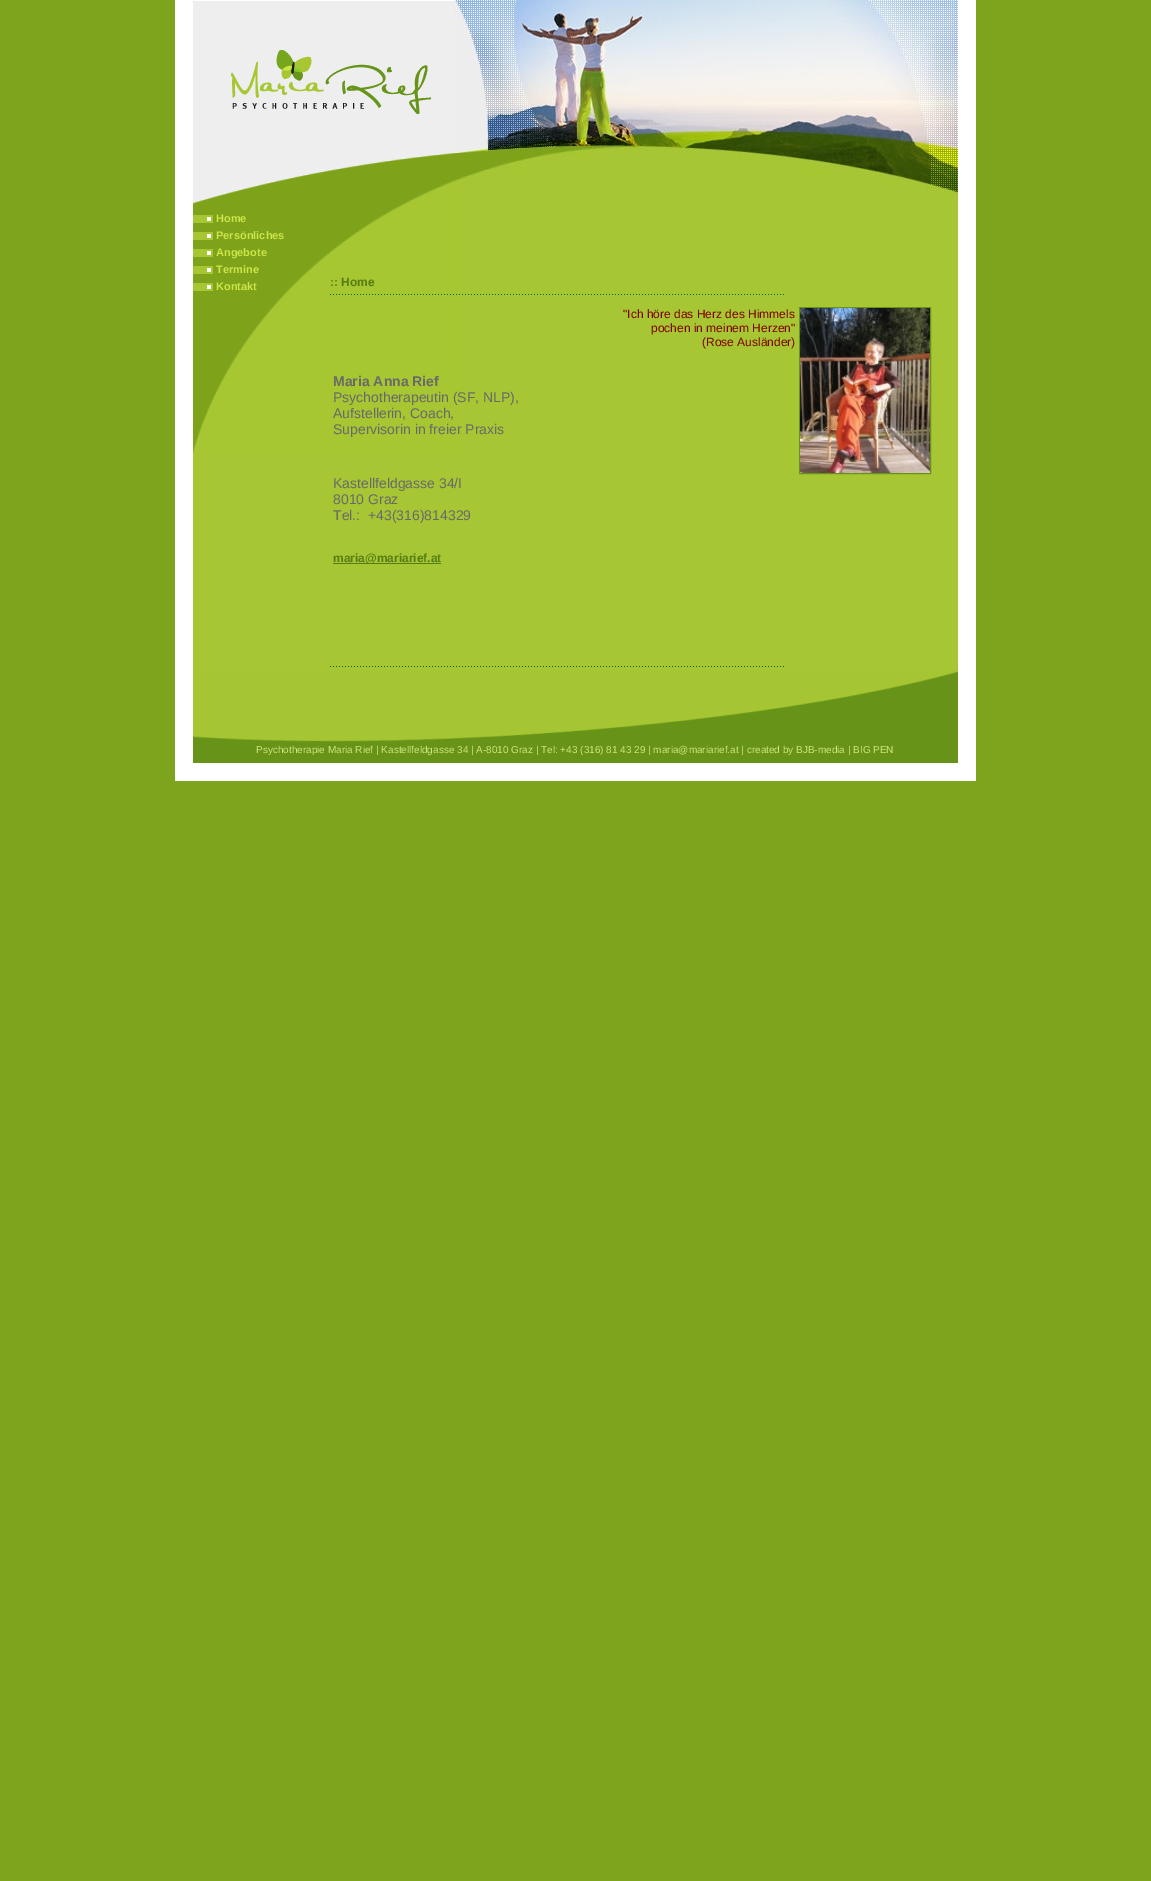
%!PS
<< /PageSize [1151 1881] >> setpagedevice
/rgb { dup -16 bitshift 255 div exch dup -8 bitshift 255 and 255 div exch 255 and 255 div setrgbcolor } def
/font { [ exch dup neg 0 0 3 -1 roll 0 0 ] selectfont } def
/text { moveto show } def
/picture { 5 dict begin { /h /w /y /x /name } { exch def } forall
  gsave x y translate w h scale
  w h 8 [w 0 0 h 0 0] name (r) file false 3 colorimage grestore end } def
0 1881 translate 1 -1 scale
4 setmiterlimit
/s1 { /LiberationSans-Bold 11 font 16#CCE548 rgb } def
/s2 { /LiberationSans-Bold 12 font 16#567D13 rgb } def
/s3 { /LiberationSans-Regular 12 font 16#800000 rgb } def
/s4 { /LiberationSans-Bold 14 font 16#696969 rgb } def
/s5 { /LiberationSans-Regular 14 font 16#696969 rgb } def
/s6 { /LiberationSans-Regular 10 font 16#CFE67D rgb } def
16#7EA31C rgb
0 0 1151 1881 rectfill
16#FFFFFF rgb
175 0 801 781 rectfill
16#A6C733 rgb
193 193 765 478 rectfill
(pic1.raw) 193 0 261 454 picture
(pic2.raw) 454 0 504 193 picture
(pic3.raw) 231 50 200 64 picture
(pic4.raw) 193 215 20 8 picture
s1
(Home) 216 222 text
(pic4.raw) 193 232 20 8 picture
(Persönliches) 216 239 text
(pic4.raw) 193 249 20 8 picture
(Angebote) 216 256 text
(pic4.raw) 193 266 20 8 picture
(Termine) 216 273 text
(pic4.raw) 193 283 20 8 picture
(Kontakt) 216 290 text
s2
(:: Home) 330 286 text
(pic5.raw) 330 294 454 1 picture
s3
("Ich höre das Herz des Himmels) 623 318 text
(pochen in meinem Herzen") 651 332 text
(\(Rose Ausländer\)) 702 346 text
s4
(Maria Anna Rief) 333 386 text
s5
(Psychotherapeutin \(SF, NLP\),) 333 402 text
(Aufstellerin, Coach,) 333 418 text
(Supervisorin in freier Praxis) 333 434 text
(Kastellfeldgasse 34/I) 333 488 text
(8010 Graz) 333 504 text
(Tel.:  +43\(316\)814329) 333 520 text
16#567D13 rgb
333 563 108 1 rectfill
s2
(maria@mariarief.at) 333 562 text
16#669318 rgb
799.5 307.5 131 166 rectstroke
(pic6.raw) 800 308 130 165 picture
(pic5.raw) 330 666 454 1 picture
(pic7.raw) 193 671 765 92 picture
s6
(Psychotherapie Maria Rief | Kastellfeldgasse 34 | A-8010 Graz | Tel: +43 \(316\) 81 43 29 | maria@mariarief.at | created by BJB-media | BIG PEN) 256 753 text
showpage
